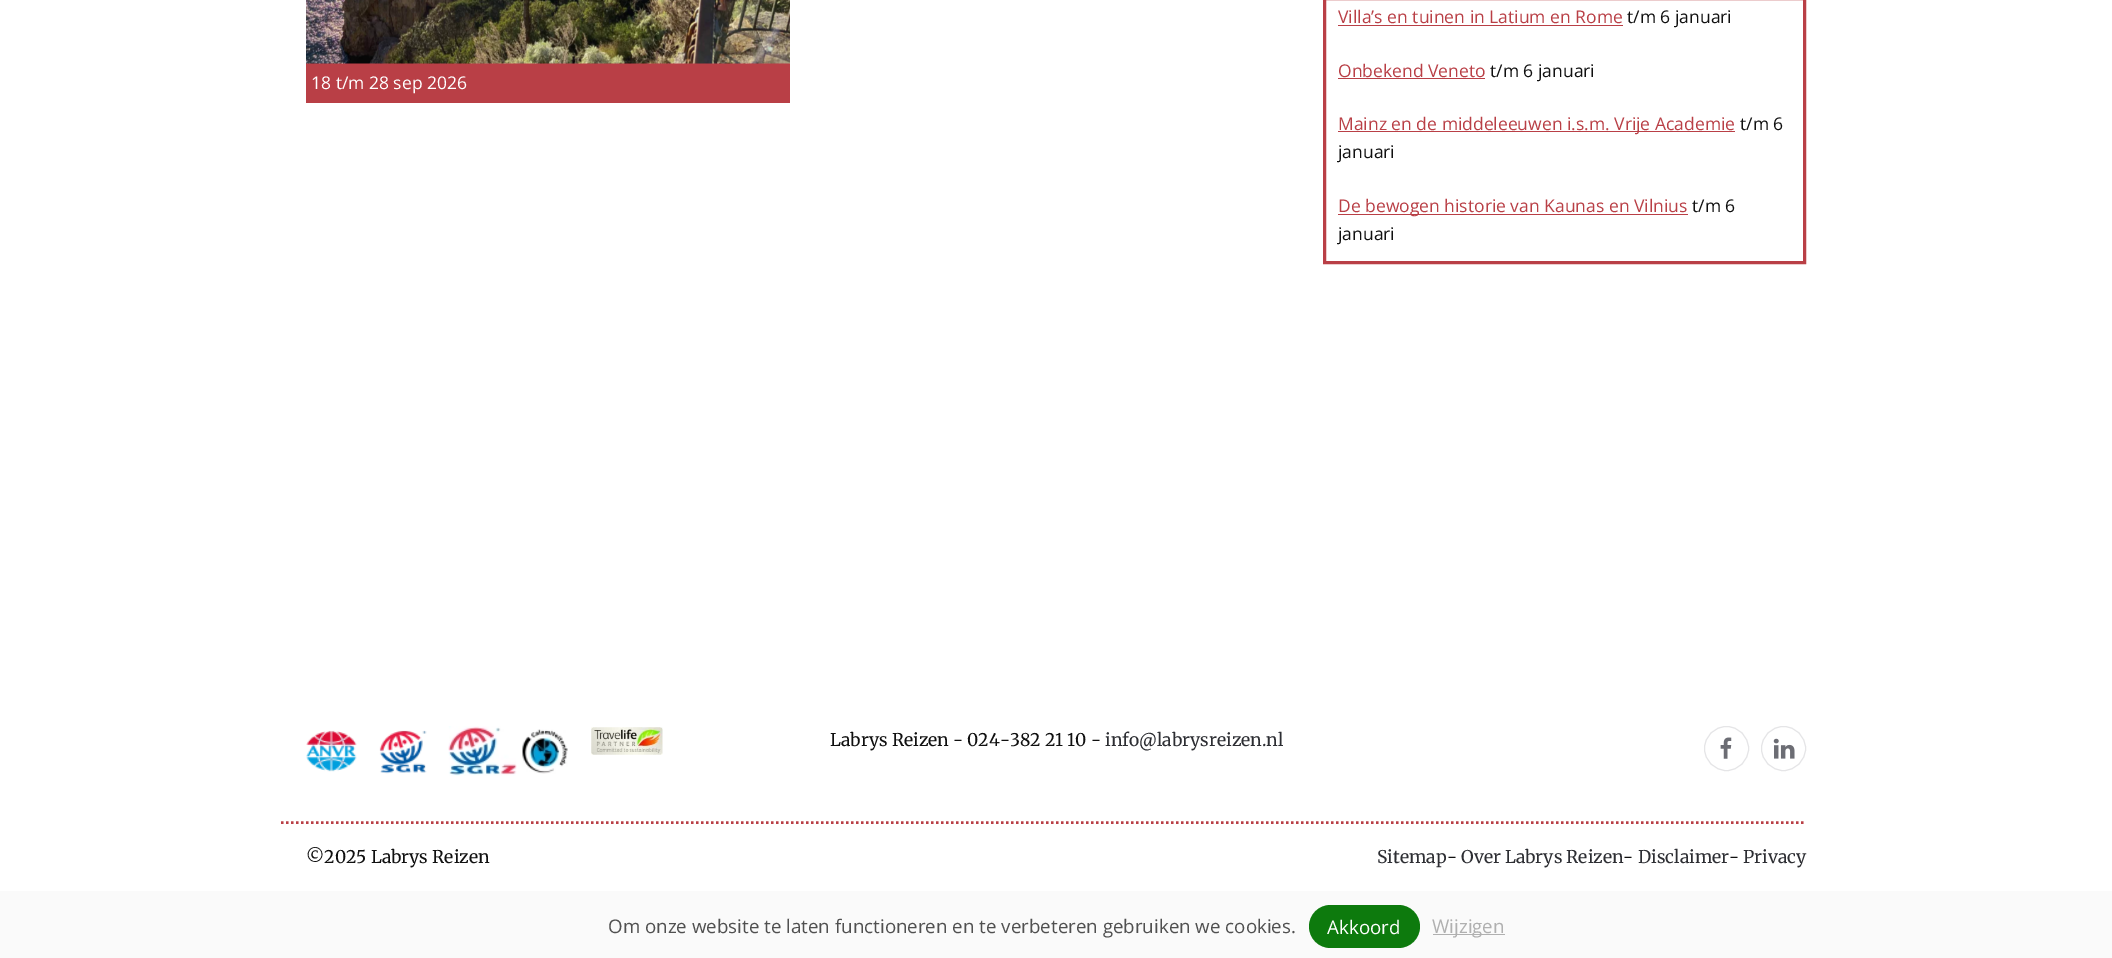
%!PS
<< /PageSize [2112 958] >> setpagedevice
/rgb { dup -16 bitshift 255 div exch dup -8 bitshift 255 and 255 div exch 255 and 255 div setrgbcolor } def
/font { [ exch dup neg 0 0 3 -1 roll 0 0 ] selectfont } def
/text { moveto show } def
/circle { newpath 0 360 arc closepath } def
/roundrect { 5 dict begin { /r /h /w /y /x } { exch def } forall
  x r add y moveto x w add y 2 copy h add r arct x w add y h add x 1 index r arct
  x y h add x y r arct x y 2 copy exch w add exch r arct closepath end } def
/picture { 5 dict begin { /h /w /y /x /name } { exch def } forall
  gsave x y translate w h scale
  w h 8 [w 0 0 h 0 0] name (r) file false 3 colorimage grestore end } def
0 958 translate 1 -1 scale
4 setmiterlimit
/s1 { /OpenSans-Regular 17.5 font 16#FFFFFF rgb } def
/s2 { /OpenSans-Regular 17.5 font 16#B93F46 rgb } def
/s3 { /OpenSans-Regular 17.5 font 16#101010 rgb } def
/s4 { /Merriweather-Light 17.5 font 16#101010 rgb } def
/s5 { /Merriweather-Light 17.5 font 16#2D2E33 rgb } def
/s6 { /OpenSans-Regular 18.75 font 16#505050 rgb } def
/s7 { /OpenSans-Regular 18.75 font 16#FFFFFF rgb } def
/s8 { /OpenSans-Regular 18.75 font 16#B0B0B0 rgb } def
16#FFFFFF rgb
0 0 2112 958 rectfill
16#B93F46 rgb
306 63 484 40 rectfill
(pic1.raw) 306 0 484 64 picture
s1
(18 t/m 28 sep 2026) 311 89 text
16#B93F46 rgb
3 setlinewidth
1324.5 -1.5 480 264 rectstroke
(Villa’s en tuinen in Latium en Rome) 1338 23 text
1338 25 285 1 rectfill
s3
(t/m 6 januari) 1627 23 text
s2
(Onbekend Veneto) 1338 77 text
1338 78 147 1 rectfill
s3
(t/m 6 januari) 1490 77 text
16#B93F46 rgb
1338 131 397 1 rectfill
(Mainz en de middeleeuwen i.s.m. Vrije Academie) 1338 130 text
s3
(t/m 6) 1740 130 text
(januari) 1338 158 text
16#B93F46 rgb
1338 214 350 1 rectfill
(De bewogen historie van Kaunas en Vilnius) 1338 212 text
s3
(t/m 6) 1692 212 text
(januari) 1338 240 text
(pic2.raw) 306 730 51 42 picture
(pic3.raw) 379 730 48 44 picture
(pic4.raw) 448 726 69 50 picture
(pic5.raw) 522 729 46 45 picture
(pic6.raw) 591 727 72 28 picture
s4
(Labrys Reizen - 024-382 21 10 -) 830 746 text
s5
(info@labrysreizen.nl) 1105 746 text
16#E5E5E7 rgb
1 setlinewidth
1726.5 748.5 22 circle stroke
(pic7.raw) 1720 737 12 22 picture
1783.5 748.5 22 circle stroke
(pic8.raw) 1773 738 22 21 picture
16#B93F46 rgb
2.5 setlinewidth
[2.5 2.5] 0 setdash
281 822.5 moveto 1806 822.5 lineto stroke
s4
(©2025 Labrys Reizen) 306 863 text
s5
(Sitemap) 1377 863 text
s4
(-) 1447 863 text
s5
(Over Labrys Reizen) 1461 863 text
s4
(-) 1623 863 text
s5
(Disclaimer) 1638 863 text
s4
(-) 1729 863 text
s5
(Privacy) 1743 863 text
16#FAFAFA rgb
0 891 2112 67 rectfill
s6
(Om onze website te laten functioneren en te verbeteren gebruiken we cookies.) 608 933 text
16#0D7A0D rgb
1309 905 111 43 21.5 roundrect fill
s7
(Akkoord) 1327 934 text
16#B0B0B0 rgb
1433 934 72 1 rectfill
(Wijzigen) 1432 933 text
showpage
